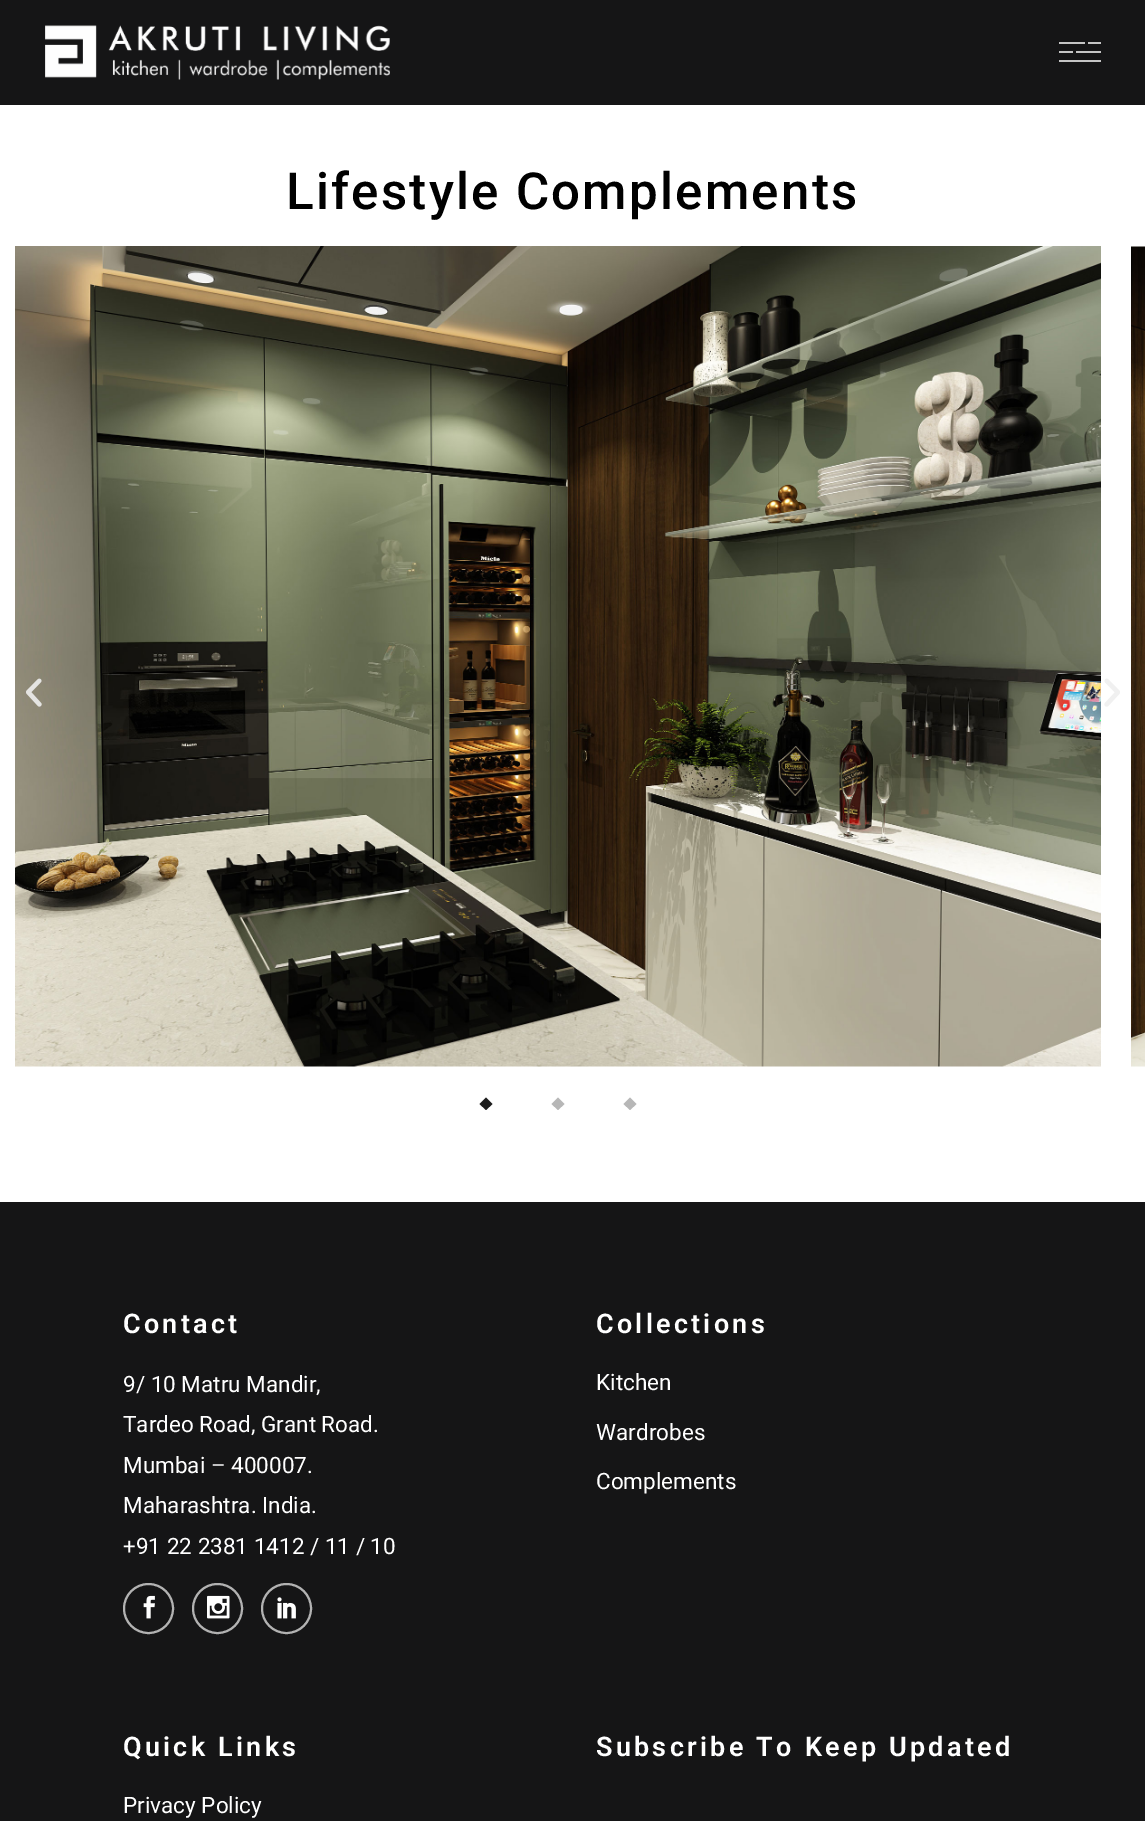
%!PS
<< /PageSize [1145 1821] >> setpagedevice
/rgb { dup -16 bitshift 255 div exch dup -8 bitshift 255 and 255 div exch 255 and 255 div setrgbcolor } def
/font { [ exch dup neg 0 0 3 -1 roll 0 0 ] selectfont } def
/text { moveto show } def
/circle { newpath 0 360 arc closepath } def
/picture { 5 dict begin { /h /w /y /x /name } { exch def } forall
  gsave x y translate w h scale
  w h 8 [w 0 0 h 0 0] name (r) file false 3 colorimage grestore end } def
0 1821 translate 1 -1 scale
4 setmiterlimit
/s1 { /Roboto-Regular 22.5 font 16#FFFFFF rgb } def
16#FFFFFF rgb
0 0 1145 1821 rectfill
16#151516 rgb
0 0 1145 105 rectfill
(pic1.raw) 45 25 345 55 picture
16#C5C5C5 rgb
1059 42 26 2 rectfill
1088 42 13 2 rectfill
1059 51 14 2 rectfill
1076 51 25 2 rectfill
1059 60 42 2 rectfill
/Roboto-Medium 51 font
16#000000 rgb
286 209 moveto 2.25 0 (Lifestyle Complements) ashow
(pic2.raw) 15 246 1086 821 picture
(pic3.raw) 1131 246 14 821 picture
(pic4.raw) 26 678 16 29 picture
(pic5.raw) 1104 678 16 29 picture
16#1D1D1D rgb
486 1097.5 moveto 492.5 1104 lineto 486 1110 lineto 479.5 1104 lineto closepath fill
16#B7B7B7 rgb
558 1097.5 moveto 564.5 1104 lineto 558 1110 lineto 551.5 1104 lineto closepath fill
630 1097.5 moveto 636.5 1104 lineto 630 1110 lineto 623.5 1104 lineto closepath fill
16#151516 rgb
0 1202 1145 619 rectfill
/Roboto-SemiBold 27 font
16#FFFFFF rgb
123 1333 moveto 3.25 0 (Contact) ashow
s1
(9/ 10 Matru Mandir,) 123 1392 text
(Tardeo Road, Grant Road.) 123 1432 text
(Mumbai – 400007.) 123 1473 text
(Maharashtra. India.) 123 1513 text
(+91 22 2381 1412 / 11 / 10) 123 1554 text
16#B2B2B2 rgb
2 setlinewidth
148.5 1608.5 24.5 circle stroke
(pic6.raw) 143 1595 12 24 picture
217.5 1608.5 24.5 circle stroke
(pic7.raw) 207 1595 23 24 picture
286.5 1608.5 24.5 circle stroke
(pic8.raw) 277 1597 19 22 picture
/Roboto-SemiBold 27 font
16#FFFFFF rgb
596 1333 moveto 3.25 0 (Collections) ashow
s1
(Kitchen) 596 1390 text
(Wardrobes) 596 1440 text
(Complements) 596 1489 text
/Roboto-SemiBold 27 font
123 1756 moveto 3.25 0 (Quick Links) ashow
s1
(Privacy Policy) 123 1813 text
/Roboto-SemiBold 27 font
596 1756 moveto 3.25 0 (Subscribe To Keep Updated) ashow
showpage
